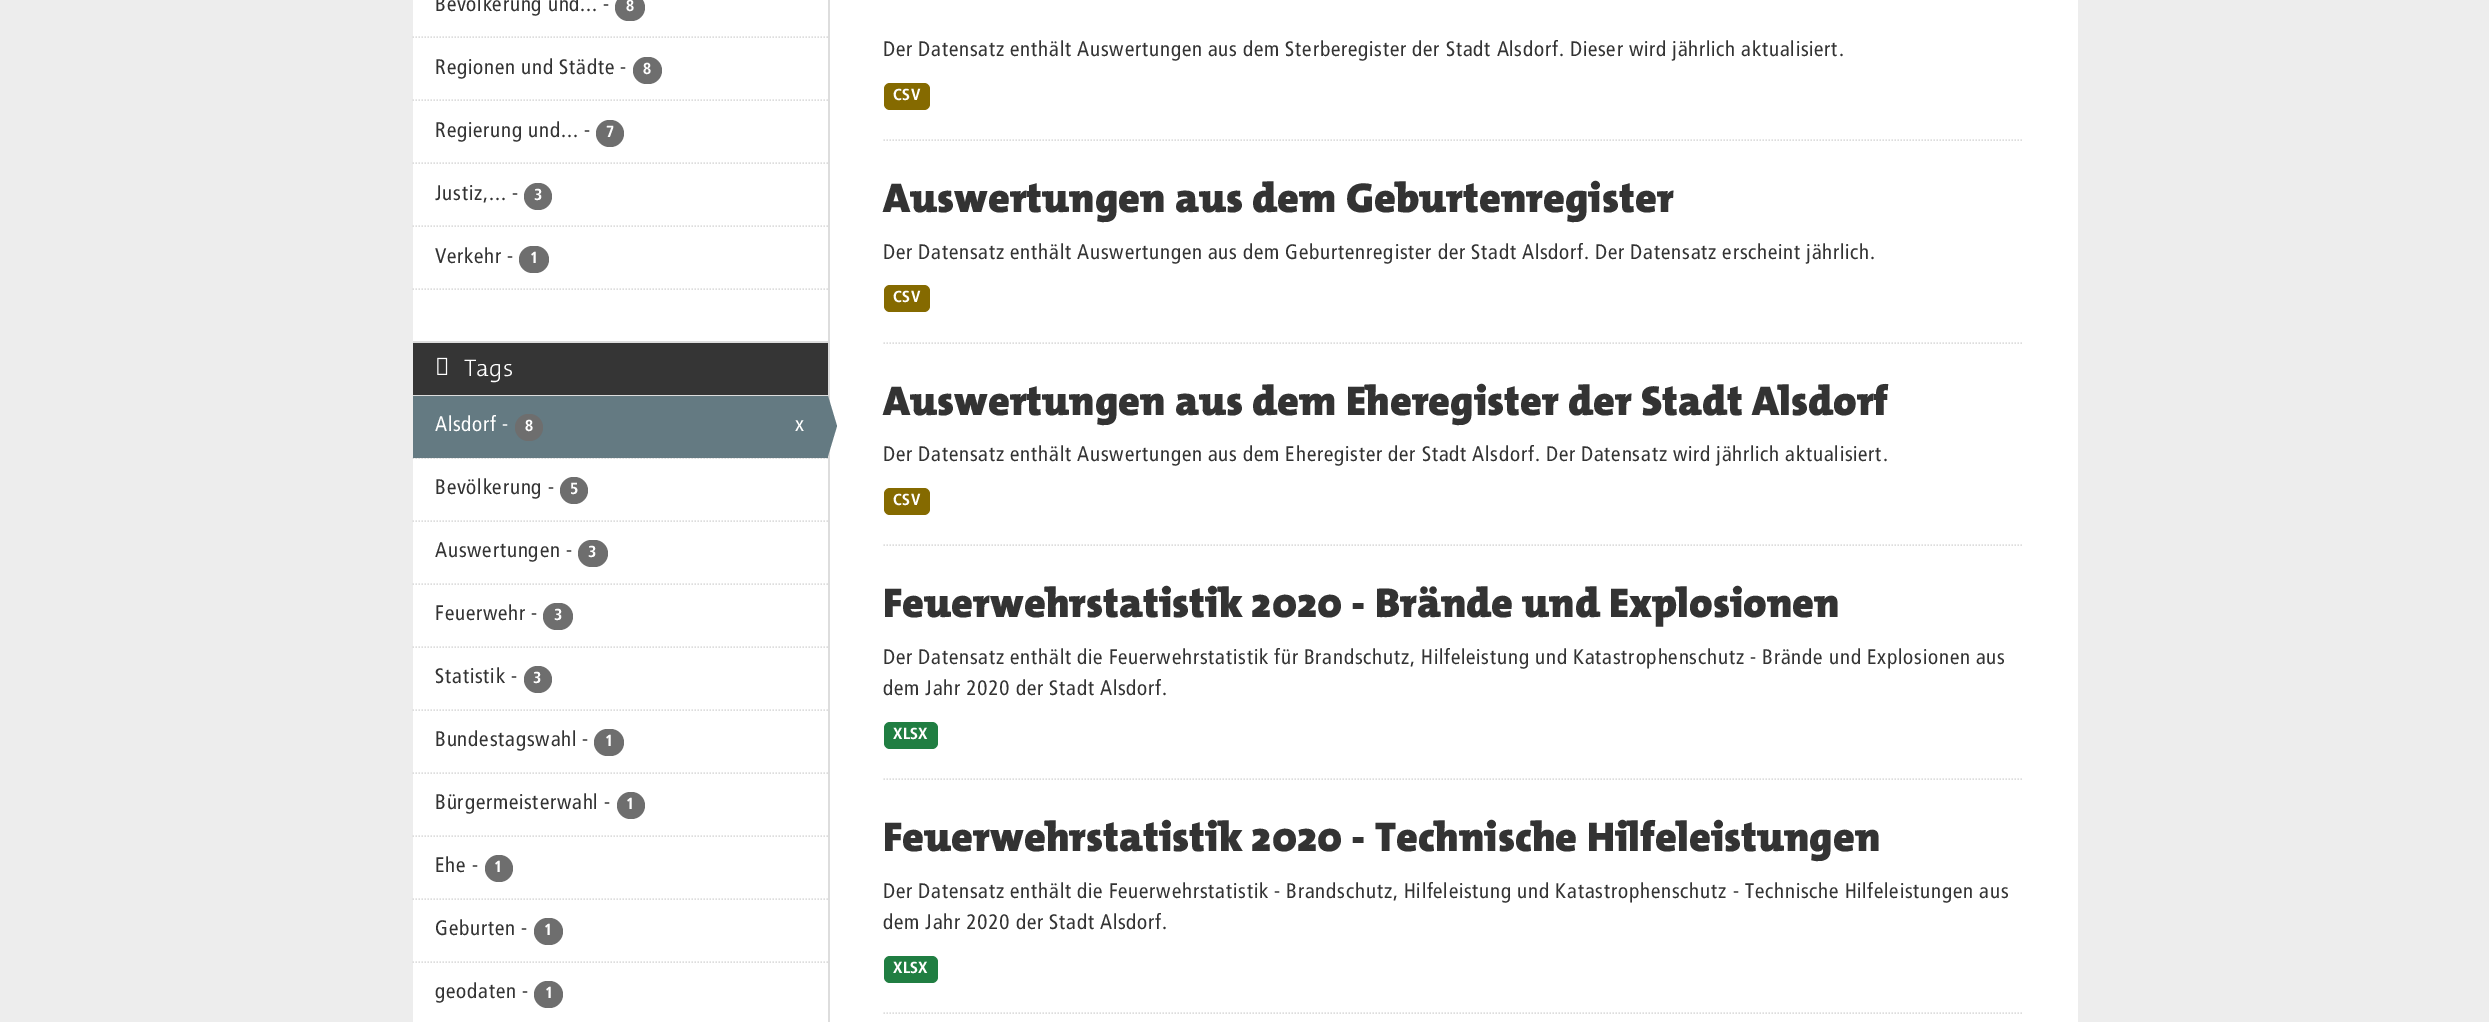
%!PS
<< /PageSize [2489 1022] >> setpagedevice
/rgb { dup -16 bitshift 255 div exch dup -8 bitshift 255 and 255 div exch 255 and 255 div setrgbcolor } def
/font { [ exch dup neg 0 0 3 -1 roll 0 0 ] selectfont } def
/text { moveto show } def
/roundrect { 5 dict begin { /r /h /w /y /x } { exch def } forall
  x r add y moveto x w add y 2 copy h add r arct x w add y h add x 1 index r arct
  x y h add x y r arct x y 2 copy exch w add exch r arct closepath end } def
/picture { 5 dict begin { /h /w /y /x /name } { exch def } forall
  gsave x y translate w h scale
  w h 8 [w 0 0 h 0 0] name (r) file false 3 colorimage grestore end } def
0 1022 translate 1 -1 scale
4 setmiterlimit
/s1 { /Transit-Regular 21 font 16#333333 rgb } def
/s2 { /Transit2-Regular 16 font 16#FFFFFF rgb } def
/s3 { /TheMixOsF-Light 24 font 16#FFFFFF rgb } def
/s4 { /Transit-Regular 21 font 16#FFFFFF rgb } def
/s5 { /TheMixOsF-Black 42 font 16#333333 rgb } def
16#EDEDED rgb
0 0 2489 1022 rectfill
16#FFFFFF rgb
413 0 1665 1022 rectfill
16#DDDDDD rgb
1.5 setlinewidth
[1.5 1.5] 0 setdash
412.5 37 moveto 828 37 lineto stroke
s1
(Bevölkerung und... -) 435 11 text
16#6E6E6E rgb
615 -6 30 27 13.5 roundrect fill
s2
(8) 626 11 text
16#DDDDDD rgb
412.5 100 moveto 828 100 lineto stroke
s1
(Regionen und Städte -) 435 74 text
16#6E6E6E rgb
633 57 29 27 13.5 roundrect fill
s2
(8) 643 74 text
16#DDDDDD rgb
412.5 163 moveto 828 163 lineto stroke
s1
(Regierung und... -) 435 137 text
16#6E6E6E rgb
596 120 28 27 13.5 roundrect fill
s2
(7) 606 137 text
16#DDDDDD rgb
412.5 226 moveto 828 226 lineto stroke
s1
(Justiz,... -) 435 200 text
16#6E6E6E rgb
524 183 28 27 13.5 roundrect fill
s2
(3) 534 200 text
s1
(Verkehr -) 435 263 text
16#6E6E6E rgb
519 246 30 27 13.5 roundrect fill
s2
(1) 530 263 text
16#DDDDDD rgb
412.5 289 moveto 828 289 lineto stroke
16#353535 rgb
413 343 415 52 rectfill
16#DDDDDD rgb
413 341 415 2 rectfill
413 395 415 1 rectfill
(pic1.raw) 437 357 11 18 picture
s3
(Tags) 464 376 text
16#F6F6F6 rgb
413 458 415 1 rectfill
16#DDDDDD rgb
412.5 458 moveto 828 458 lineto stroke
16#647A82 rgb
413 396 415 62 rectfill
s4
(Alsdorf -) 435 431 text
16#6E6E6E rgb
515 414 28 27 13.5 roundrect fill
s2
(8) 525 431 text
s4
(x) 795 431 text
16#DDDDDD rgb
828 0 2 1022 rectfill
16#647A82 rgb
828 456 moveto 828 396 lineto 837 426 lineto closepath fill
16#DDDDDD rgb
412.5 521 moveto 828 521 lineto stroke
s1
(Bevölkerung -) 435 494 text
16#6E6E6E rgb
560 477 28 27 13.5 roundrect fill
s2
(5) 570 494 text
16#DDDDDD rgb
412.5 584 moveto 828 584 lineto stroke
s1
(Auswertungen -) 435 557 text
16#6E6E6E rgb
578 540 30 27 13.5 roundrect fill
s2
(3) 588 557 text
16#DDDDDD rgb
412.5 647 moveto 828 647 lineto stroke
s1
(Feuerwehr -) 435 620 text
16#6E6E6E rgb
543 603 30 27 13.5 roundrect fill
s2
(3) 554 620 text
16#DDDDDD rgb
412.5 710 moveto 828 710 lineto stroke
s1
(Statistik -) 435 683 text
16#6E6E6E rgb
524 666 28 27 13.5 roundrect fill
s2
(3) 533 683 text
16#DDDDDD rgb
412.5 773 moveto 828 773 lineto stroke
s1
(Bundestagswahl -) 435 746 text
16#6E6E6E rgb
594 729 30 27 13.5 roundrect fill
s2
(1) 605 746 text
16#DDDDDD rgb
412.5 836 moveto 828 836 lineto stroke
s1
(Bürgermeisterwahl -) 435 809 text
16#6E6E6E rgb
617 792 28 27 13.5 roundrect fill
s2
(1) 626 809 text
16#DDDDDD rgb
412.5 899 moveto 828 899 lineto stroke
s1
(Ehe -) 435 872 text
16#6E6E6E rgb
485 855 28 27 13.5 roundrect fill
s2
(1) 494 872 text
16#DDDDDD rgb
412.5 962 moveto 828 962 lineto stroke
s1
(Geburten -) 435 935 text
16#6E6E6E rgb
534 918 29 27 13.5 roundrect fill
s2
(1) 544 935 text
s1
(geodaten -) 435 998 text
16#6E6E6E rgb
534 981 29 27 13.5 roundrect fill
s2
(1) 545 998 text
16#DDDDDD rgb
883.5 140 moveto 2023.5 140 lineto stroke
s1
(Der Datensatz enthält Auswertungen aus dem Sterberegister der Stadt Alsdorf. Dieser wird jährlich aktualisiert.) 883 56 text
16#856A00 rgb
884 83 46 27 6 roundrect fill
s2
(CSV) 893 100 text
16#DDDDDD rgb
883.5 343 moveto 2023.5 343 lineto stroke
s5
(Auswertungen aus dem Geburtenregister) 883 212 text
s1
(Der Datensatz enthält Auswertungen aus dem Geburtenregister der Stadt Alsdorf. Der Datensatz erscheint jährlich.) 883 259 text
16#856A00 rgb
884 285 46 27 6 roundrect fill
s2
(CSV) 893 302 text
16#DDDDDD rgb
883.5 545 moveto 2023.5 545 lineto stroke
s5
(Auswertungen aus dem Eheregister der Stadt Alsdorf) 883 415 text
s1
(Der Datensatz enthält Auswertungen aus dem Eheregister der Stadt Alsdorf. Der Datensatz wird jährlich aktualisiert.) 883 461 text
16#856A00 rgb
884 488 46 27 6 roundrect fill
s2
(CSV) 893 505 text
16#DDDDDD rgb
883.5 779 moveto 2023.5 779 lineto stroke
s5
(Feuerwehrstatistik 2020 - Brände und Explosionen) 883 617 text
s1
(Der Datensatz enthält die Feuerwehrstatistik für Brandschutz, Hilfeleistung und Katastrophenschutz - Brände und Explosionen aus) 883 664 text
(dem Jahr 2020 der Stadt Alsdorf.) 883 695 text
16#207E42 rgb
884 722 54 27 6 roundrect fill
s2
(XLSX) 893 739 text
16#DDDDDD rgb
883.5 1013 moveto 2023.5 1013 lineto stroke
s5
(Feuerwehrstatistik 2020 - Technische Hilfeleistungen) 883 851 text
s1
(Der Datensatz enthält die Feuerwehrstatistik - Brandschutz, Hilfeleistung und Katastrophenschutz - Technische Hilfeleistungen aus) 883 898 text
(dem Jahr 2020 der Stadt Alsdorf.) 883 929 text
16#207E42 rgb
884 956 54 27 6 roundrect fill
s2
(XLSX) 893 973 text
showpage
